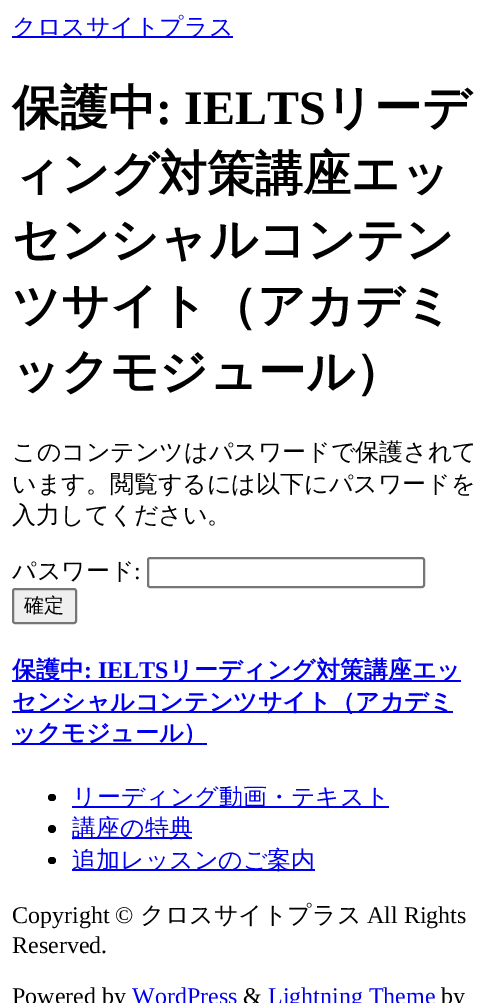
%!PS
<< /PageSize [489 1003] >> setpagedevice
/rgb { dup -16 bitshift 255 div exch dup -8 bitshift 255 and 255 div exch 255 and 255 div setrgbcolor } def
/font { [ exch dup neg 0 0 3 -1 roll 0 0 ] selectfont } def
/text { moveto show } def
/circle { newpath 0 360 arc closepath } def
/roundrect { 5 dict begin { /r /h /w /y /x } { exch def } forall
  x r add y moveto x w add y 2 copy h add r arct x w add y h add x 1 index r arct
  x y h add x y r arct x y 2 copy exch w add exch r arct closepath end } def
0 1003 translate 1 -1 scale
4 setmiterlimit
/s1 { /WenQuanYiZenHei-Medium 24 font 16#0000EE rgb } def
/s2 { /WenQuanYiZenHei-Bold 48 font 16#000000 rgb } def
/s3 { /LiberationSerif-Bold 48 font 16#000000 rgb } def
/s4 { /WenQuanYiZenHei-Medium 24 font 16#000000 rgb } def
/s5 { /LiberationSerif-Regular 24 font 16#000000 rgb } def
/s6 { /WenQuanYiZenHei-Medium 20 font 16#000000 rgb } def
/s7 { /WenQuanYiZenHei-Bold 24 font 16#0000EE rgb } def
/s8 { /LiberationSerif-Bold 24 font 16#0000EE rgb } def
/s9 { /LiberationSerif-Regular 24 font 16#0000EE rgb } def
16#FFFFFF rgb
0 0 489 1003 rectfill
16#0000EE rgb
12 36 221 2 rectfill
s1
(クロスサイトプラス) 12 35 text
s2
(保護中) 12 124 text
s3
(: IELTS) 156 124 text
s2
(リーデ) 325 124 text
(ィング対策講座エッ) 12 190 text
(センシャルコンテン) 12 256 text
(ツサイト（アカデミ) 12 322 text
(ックモジュール）) 12 388 text
s4
(このコンテンツはパスワードで保護されて) 12 460 text
(います。閲覧するには以下にパスワードを) 12 492 text
(入力してください。) 12 523 text
(パスワード) 12 579 text
s5
(:) 134 579 text
16#767676 rgb
2 setlinewidth
148 558 276 29 2 roundrect stroke
16#EFEFEF rgb
13 589 63 34 2 roundrect gsave fill grestore
16#767676 rgb
stroke
s6
(確定) 24 612 text
16#0000EE rgb
12 680 449 2 rectfill
s7
(保護中) 12 678 text
s8
(: IELTS) 84 678 text
s7
(リーディング対策講座エッ) 169 678 text
12 711 441 2 rectfill
(センシャルコンテンツサイト（アカデミ) 12 710 text
12 743 195 2 rectfill
(ックモジュール）) 12 741 text
16#000000 rgb
48 794 8 7 3.5 roundrect fill
16#0000EE rgb
72 806 317 2 rectfill
s1
(リーディング動画・テキスト) 72 805 text
16#000000 rgb
52 829 4 circle fill
16#0000EE rgb
72 837 120 2 rectfill
(講座の特典) 72 836 text
16#000000 rgb
48 857 8 7 3.5 roundrect fill
16#0000EE rgb
72 869 243 2 rectfill
(追加レッスンのご案内) 72 868 text
s5
(Copyright ©) 12 923 text
s4
(クロスサイトプラス) 140 923 text
s5
(All Rights) 367 923 text
(Reserved.) 12 953 text
(Powered by) 12 1004 text
s9
(WordPress) 132 1004 text
s5
(&) 243 1004 text
s9
(Lightning Theme) 268 1004 text
s5
(by) 441 1004 text
showpage
